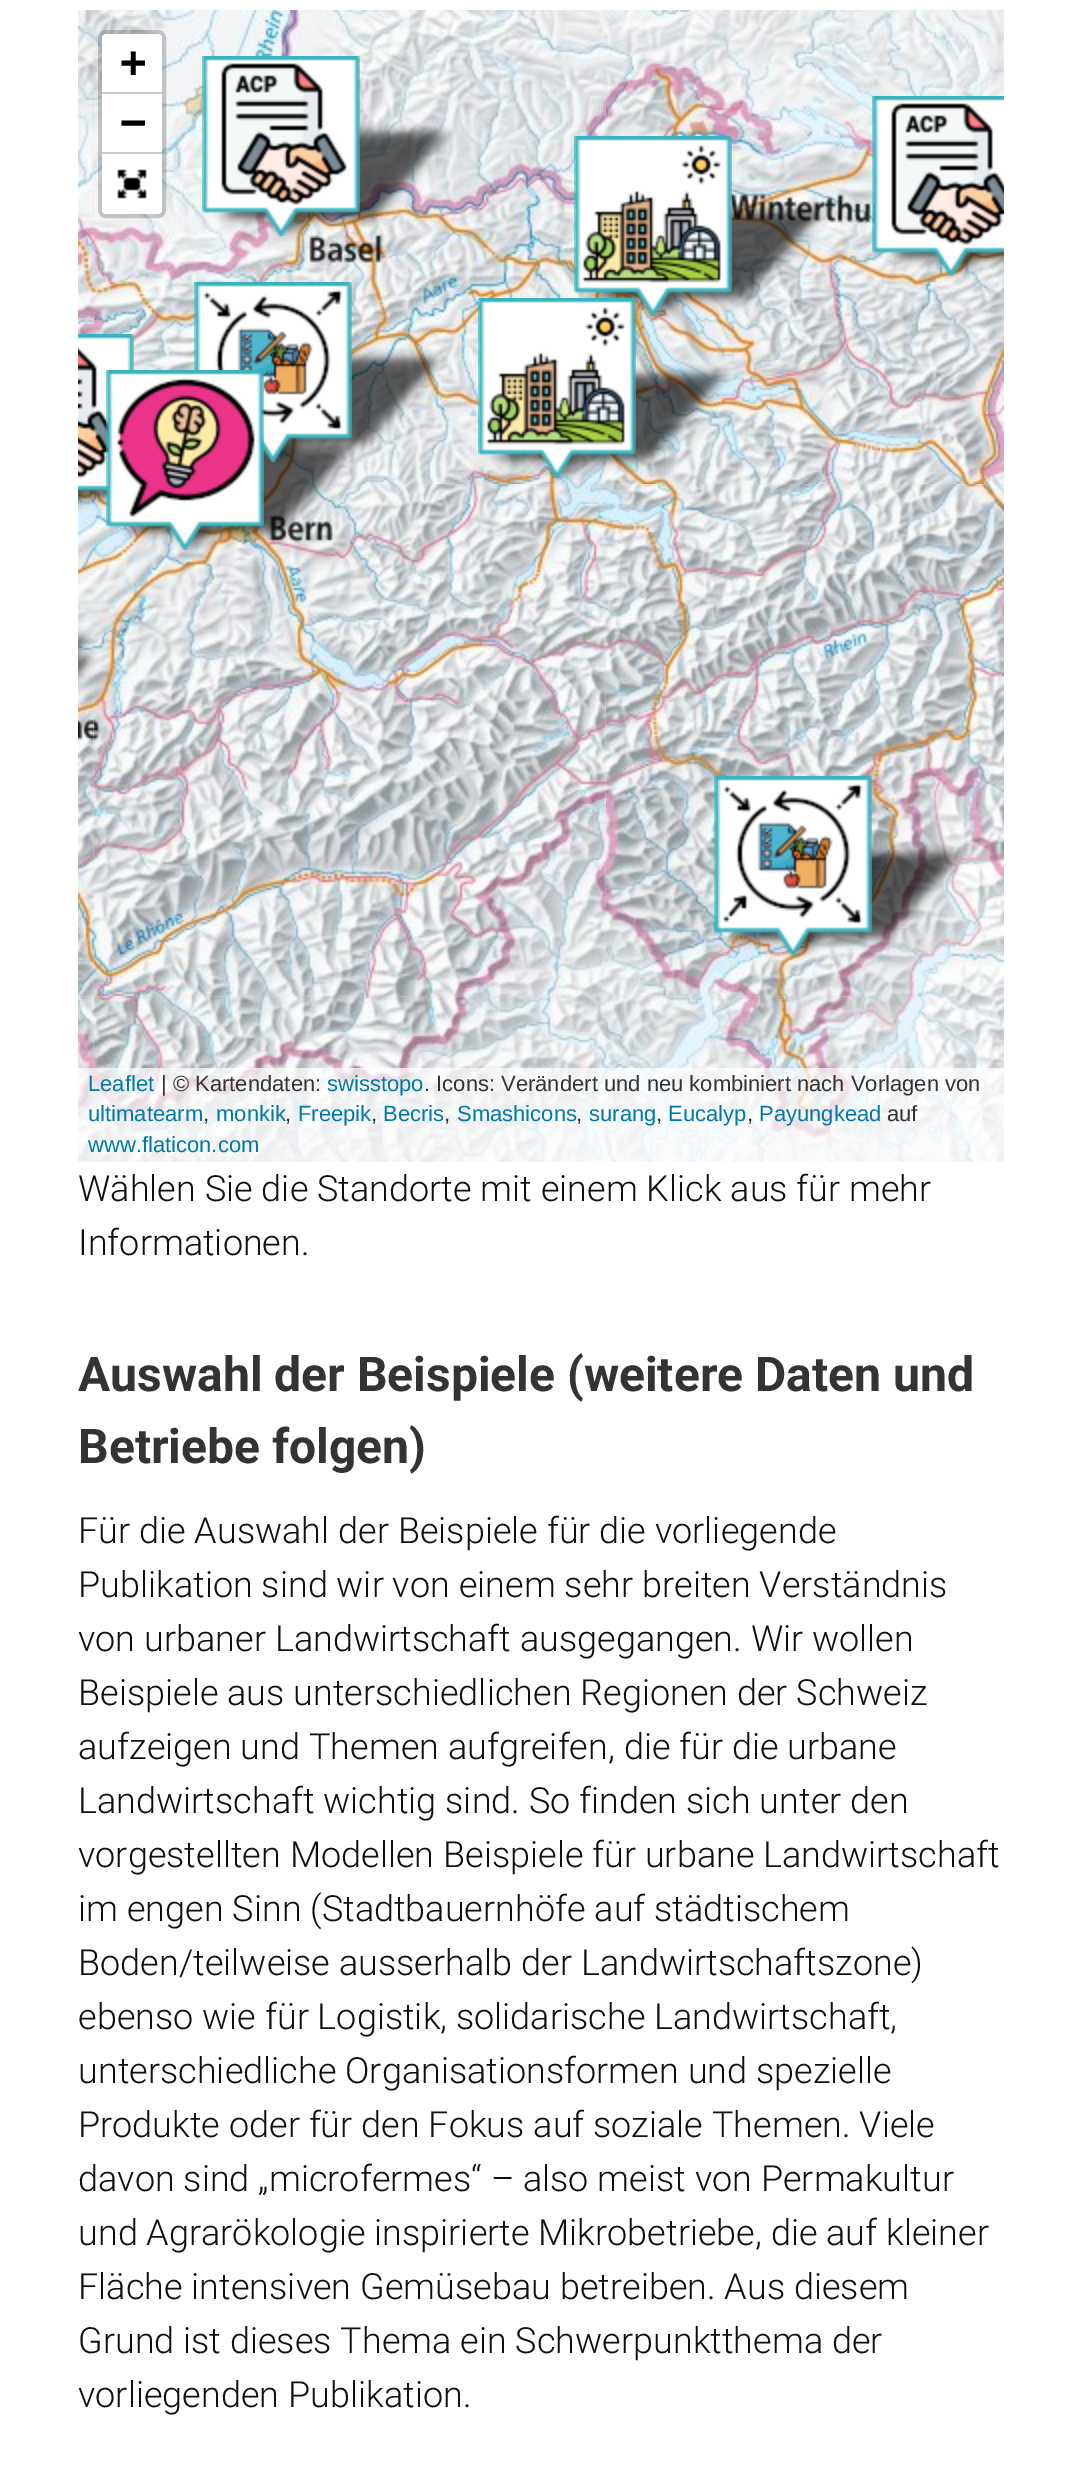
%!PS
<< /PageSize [1082 2477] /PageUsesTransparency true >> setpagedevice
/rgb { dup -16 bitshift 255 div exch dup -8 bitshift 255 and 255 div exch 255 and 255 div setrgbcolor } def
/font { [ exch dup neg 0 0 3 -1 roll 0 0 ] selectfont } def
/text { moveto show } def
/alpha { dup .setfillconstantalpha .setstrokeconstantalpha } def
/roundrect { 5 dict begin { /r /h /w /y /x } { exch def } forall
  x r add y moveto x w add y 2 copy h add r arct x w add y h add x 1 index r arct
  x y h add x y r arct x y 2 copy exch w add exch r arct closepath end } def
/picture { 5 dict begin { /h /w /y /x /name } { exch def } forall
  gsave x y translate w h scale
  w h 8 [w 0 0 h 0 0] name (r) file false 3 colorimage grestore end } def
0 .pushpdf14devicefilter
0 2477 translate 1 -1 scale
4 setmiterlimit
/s1 { /DejaVuSansMono-Bold 44 font 16#000000 rgb } def
/s2 { /LiberationSans-Regular 22 font 16#0078A8 rgb } def
/s3 { /LiberationSans-Regular 22 font 16#333333 rgb } def
/s4 { /Roboto-Light 36 font 16#0F0F0F rgb } def
/s5 { /Roboto-Bold 48 font 16#333333 rgb } def
16#FFFFFF rgb
0 0 1082 2477 rectfill
16#DDDDDD rgb
78 10 926 1152 rectfill
(pic5.raw) 94 483 513 513 picture
(pic2.raw) 94 10 512 474 picture
(pic1.raw) 78 10 17 324 picture
(pic3.raw) 606 10 398 474 picture
(pic4.raw) 78 489 17 507 picture
(pic6.raw) 606 484 398 512 picture
(pic8.raw) 94 995 513 167 picture
(pic7.raw) 78 995 17 167 picture
(pic9.raw) 606 995 398 167 picture
(pic18.raw) 216 122 238 120 picture
(pic10.raw) 202 56 158 180 picture
(pic19.raw) 588 202 238 120 picture
(pic11.raw) 574 136 158 180 picture
(pic20.raw) 886 251 118 31 picture
(pic12.raw) 872 96 132 180 picture
(pic23.raw) 78 489 31 23 picture
(pic24.raw) 120 437 238 119 picture
(pic13.raw) 78 334 56 159 picture
(pic21.raw) 261 348 185 117 picture
(pic14.raw) 194 282 158 180 picture
(pic22.raw) 492 364 238 120 picture
(pic15.raw) 478 298 158 180 picture
(pic16.raw) 106 370 158 180 picture
(pic27.raw) 728 842 238 120 picture
(pic17.raw) 714 776 158 180 picture
(pic25.raw) 78 626 16 37 picture
(pic26.raw) 78 646 20 42 picture
0.2 alpha
16#000000 rgb
4 setlinewidth
100 32 64 184 6 roundrect stroke
1 alpha
16#FFFFFF rgb
106 34 moveto 158 34 lineto 160 34 162 36 162 38 curveto 162 94 lineto 102 94 lineto 102 38 lineto 102 36 104 34 106 34 curveto closepath fill
16#CCCCCC rgb
102 92 60 2 rectfill
s1
(+) 120 77 text
16#FFFFFF rgb
102 94 60 58 rectfill
16#CCCCCC rgb
102 152 60 2 rectfill
s1
(−) 120 137 text
16#FFFFFF rgb
102 154 moveto 162 154 lineto 162 210 lineto 162 212 160 214 158 214 curveto 106 214 lineto 104 214 102 212 102 210 curveto closepath fill
(pic28.raw) 117 169 30 30 picture
0.7 alpha
78 1068 926 94 rectfill
1 alpha
s2
(Leaflet) 88 1091 text
s3
(| © Kartendaten:) 161 1091 text
s2
(swisstopo) 327 1091 text
s3
(. Icons: Verändert und neu kombiniert nach Vorlagen von) 424 1091 text
s2
(ultimatearm) 88 1121 text
s3
(,) 203 1121 text
s2
(monkik) 216 1121 text
s3
(,) 285 1121 text
s2
(Freepik) 298 1121 text
s3
(,) 371 1121 text
s2
(Becris) 383 1121 text
s3
(,) 444 1121 text
s2
(Smashicons) 457 1121 text
s3
(,) 576 1121 text
s2
(surang) 589 1121 text
s3
(,) 656 1121 text
s2
(Eucalyp) 668 1121 text
s3
(,) 747 1121 text
s2
(Payungkead) 759 1121 text
s3
(auf) 887 1121 text
s2
(www.flaticon.com) 88 1152 text
s4
(Wählen Sie die Standorte mit einem Klick aus für mehr) 78 1201 text
(Informationen.) 78 1255 text
s5
(Auswahl der Beispiele \(weitere Daten und) 78 1391 text
(Betriebe folgen\)) 78 1463 text
s4
(Für die Auswahl der Beispiele für die vorliegende) 78 1543 text
(Publikation sind wir von einem sehr breiten Verständnis) 78 1597 text
(von urbaner Landwirtschaft ausgegangen. Wir wollen) 78 1651 text
(Beispiele aus unterschiedlichen Regionen der Schweiz) 78 1705 text
(aufzeigen und Themen aufgreifen, die für die urbane) 78 1759 text
(Landwirtschaft wichtig sind. So finden sich unter den) 78 1813 text
(vorgestellten Modellen Beispiele für urbane Landwirtschaft) 78 1867 text
(im engen Sinn \(Stadtbauernhöfe auf städtischem) 78 1921 text
(Boden/teilweise ausserhalb der Landwirtschaftszone\)) 78 1975 text
(ebenso wie für Logistik, solidarische Landwirtschaft,) 78 2029 text
(unterschiedliche Organisationsformen und spezielle) 78 2083 text
(Produkte oder für den Fokus auf soziale Themen. Viele) 78 2137 text
(davon sind „microfermes“ – also meist von Permakultur) 78 2191 text
(und Agrarökologie inspirierte Mikrobetriebe, die auf kleiner) 78 2245 text
(Fläche intensiven Gemüsebau betreiben. Aus diesem) 78 2299 text
(Grund ist dieses Thema ein Schwerpunktthema der) 78 2353 text
(vorliegenden Publikation.) 78 2407 text
.poppdf14devicefilter showpage
